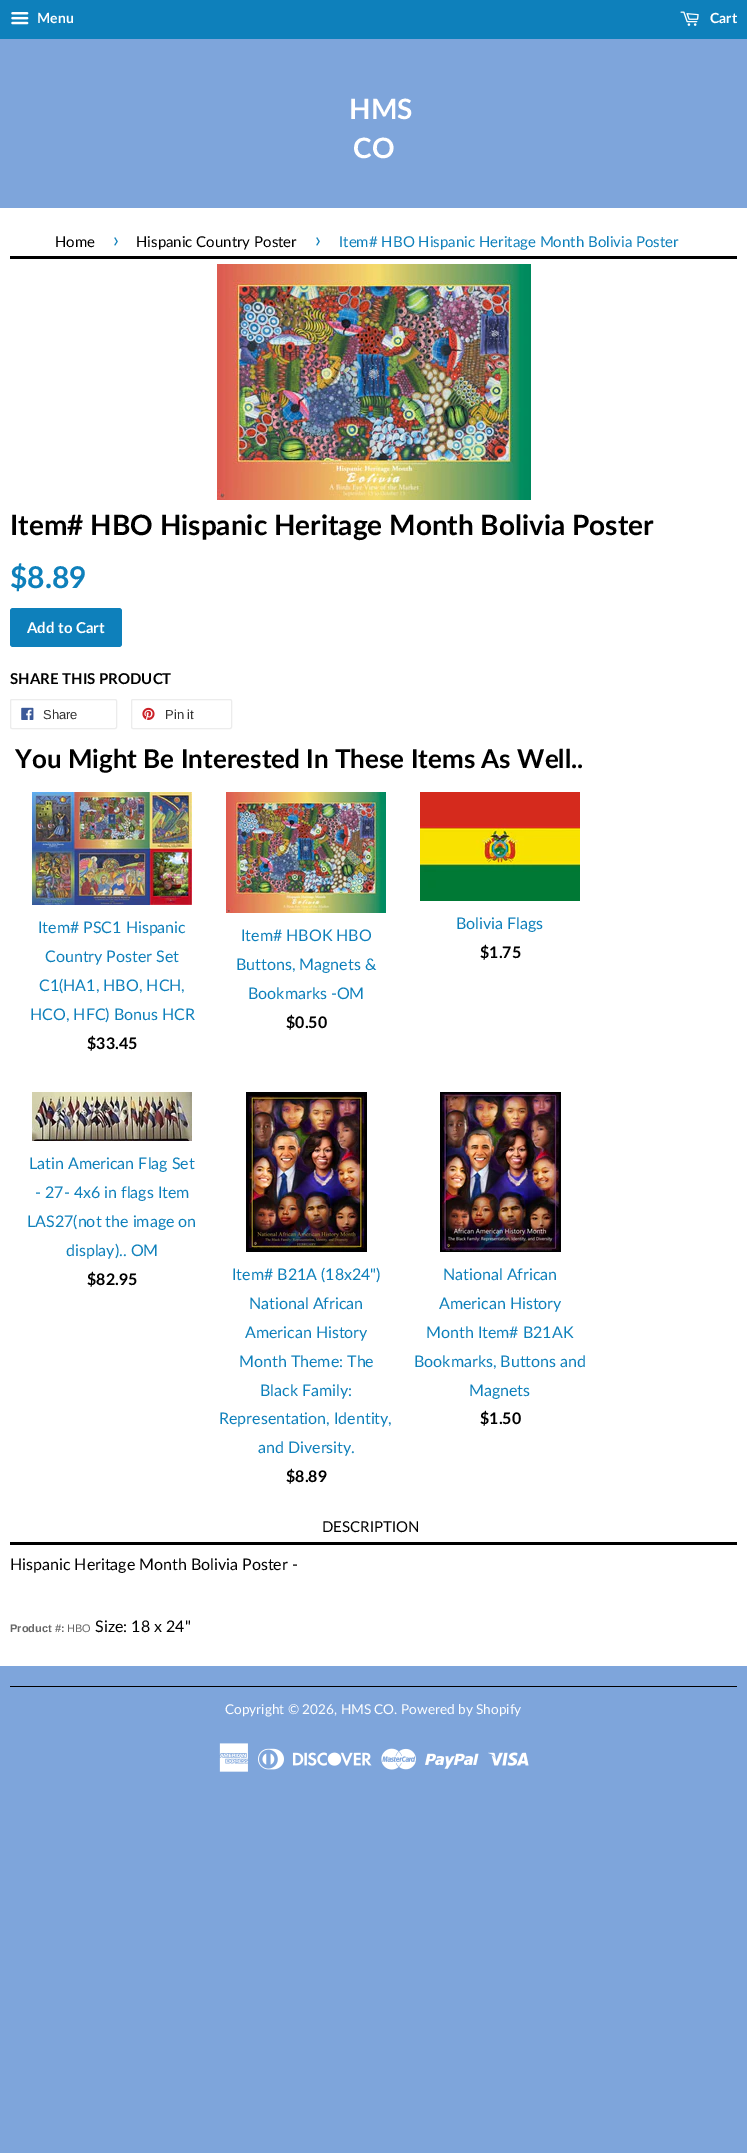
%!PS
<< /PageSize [747 2153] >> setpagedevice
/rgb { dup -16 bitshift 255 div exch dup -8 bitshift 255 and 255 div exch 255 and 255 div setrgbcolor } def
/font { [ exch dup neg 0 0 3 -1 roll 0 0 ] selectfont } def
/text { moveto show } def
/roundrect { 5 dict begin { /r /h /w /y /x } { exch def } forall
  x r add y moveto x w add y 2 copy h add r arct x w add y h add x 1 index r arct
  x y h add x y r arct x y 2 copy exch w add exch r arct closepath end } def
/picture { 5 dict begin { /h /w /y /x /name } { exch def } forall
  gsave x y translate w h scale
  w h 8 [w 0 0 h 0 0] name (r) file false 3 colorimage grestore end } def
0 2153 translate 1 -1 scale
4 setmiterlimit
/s1 { /Lato-Bold 14 font 16#FFFFFF rgb } def
/s2 { /Lato-Bold 28 font 16#FFFFFF rgb } def
/s3 { /Lato-Regular 15 font 16#000000 rgb } def
/s4 { /Lato-Regular 21 font 16#0E80BB rgb } def
/s5 { /Lato-Regular 15 font 16#0E80BB rgb } def
/s6 { /Lato-Bold 28 font 16#000000 rgb } def
/s7 { /Lato-Bold 30 font 16#0E80BB rgb } def
/s8 { /Lato-Bold 15 font 16#FFFFFF rgb } def
/s9 { /Lato-Bold 15 font 16#000000 rgb } def
/s10 { /LiberationSans-Regular 13 font 16#333333 rgb } def
/s11 { /Lato-Bold 26 font 16#000000 rgb } def
/s12 { /Lato-Regular 16 font 16#0E80BB rgb } def
/s13 { /Lato-Bold 16 font 16#000000 rgb } def
/s14 { /Lato-Regular 16 font 16#000000 rgb } def
/s15 { /LiberationSans-Bold 11 font 16#666666 rgb } def
/s16 { /LiberationSans-Regular 11 font 16#666666 rgb } def
/s17 { /Lato-Regular 13.6 font 16#FFFFFF rgb } def
16#7EA5DB rgb
0 0 747 2153 rectfill
16#FFFFFF rgb
0 208 747 1458 rectfill
16#0E80BB rgb
0 0 747 39 rectfill
(pic1.raw) 11 12 18 13 picture
s1
(Menu) 37 23 text
(pic2.raw) 680 11 19 15 picture
(Cart) 710 23 text
s2
(HMS) 349 119 text
(CO) 353 158 text
16#000000 rgb
10 256 727 3 rectfill
s3
(Home) 55 247 text
s4
(›) 113 247 text
s3
(Hispanic Country Poster) 136 247 text
s4
(›) 315 247 text
s5
(Item# HBO Hispanic Heritage Month Bolivia Poster) 339 247 text
(pic3.raw) 217 264 314 236 picture
s6
(Item# HBO Hispanic Heritage Month Bolivia Poster) 10 535 text
s7
($8.89) 10 588 text
10 608 112 39 3 roundrect fill
s8
(Add to Cart) 27 633 text
s9
(SHARE THIS PRODUCT) 10 684 text
16#ECECEC rgb
10.5 699.5 106 29 1.5 roundrect stroke
(pic4.raw) 21 707 13 13 picture
s10
(Share) 43 719 text
16#ECECEC rgb
131.5 699.5 100 29 1.5 roundrect stroke
(pic5.raw) 142 707 13 13 picture
s10
(Pin it) 165 719 text
s11
(You Might Be Interested In These Items As Well..) 15 768 text
(pic6.raw) 32 792 160 113 picture
s12
(Item# PSC1 Hispanic) 38 933 text
(Country Poster Set) 45 962 text
(C1\(HA1, HBO, HCH,) 39 991 text
(HCO, HFC\) Bonus HCR) 30 1020 text
s13
($33.45) 87 1049 text
(pic7.raw) 226 792 160 121 picture
s12
(Item# HBOK HBO) 241 941 text
(Buttons, Magnets &) 236 970 text
(Bookmarks -OM) 248 999 text
s13
($0.50) 286 1028 text
(pic8.raw) 420 792 160 109 picture
s12
(Bolivia Flags) 456 929 text
s13
($1.75) 480 958 text
(pic9.raw) 32 1092 160 49 picture
s12
(Latin American Flag Set) 29 1169 text
(- 27- 4x6 in flags Item) 35 1198 text
(LAS27\(not the image on) 27 1227 text
(display\).. OM) 66 1256 text
s13
($82.95) 87 1285 text
(pic10.raw) 246 1092 121 160 picture
s12
(Item# B21A \(18x24"\)) 232 1280 text
(National African) 249 1309 text
(American History) 245 1338 text
(Month Theme: The) 239 1367 text
(Black Family:) 260 1396 text
(Representation, Identity,) 219 1424 text
(and Diversity.) 258 1453 text
s13
($8.89) 286 1482 text
(pic11.raw) 440 1092 121 160 picture
s12
(National African) 443 1280 text
(American History) 439 1309 text
(Month Item# B21AK) 426 1338 text
(Bookmarks, Buttons and) 414 1367 text
(Magnets) 469 1396 text
s13
($1.50) 480 1424 text
10 1542 727 3 rectfill
s3
(DESCRIPTION) 322 1532 text
s14
(Hispanic Heritage Month Bolivia Poster -) 10 1570 text
s15
(Product #:) 10 1632 text
s16
(HBO) 67 1632 text
s14
(Size: 18 x 24") 95 1632 text
10 1686 727 1 rectfill
s17
(Copyright © 2026, HMS CO. Powered by Shopify) 225 1714 text
(pic12.raw) 219 1743 30 29 picture
(pic13.raw) 258 1748 26 22 picture
(pic14.raw) 293 1752 79 14 picture
(pic15.raw) 381 1748 35 22 picture
(pic16.raw) 425 1753 54 16 picture
(pic17.raw) 488 1752 41 14 picture
showpage
